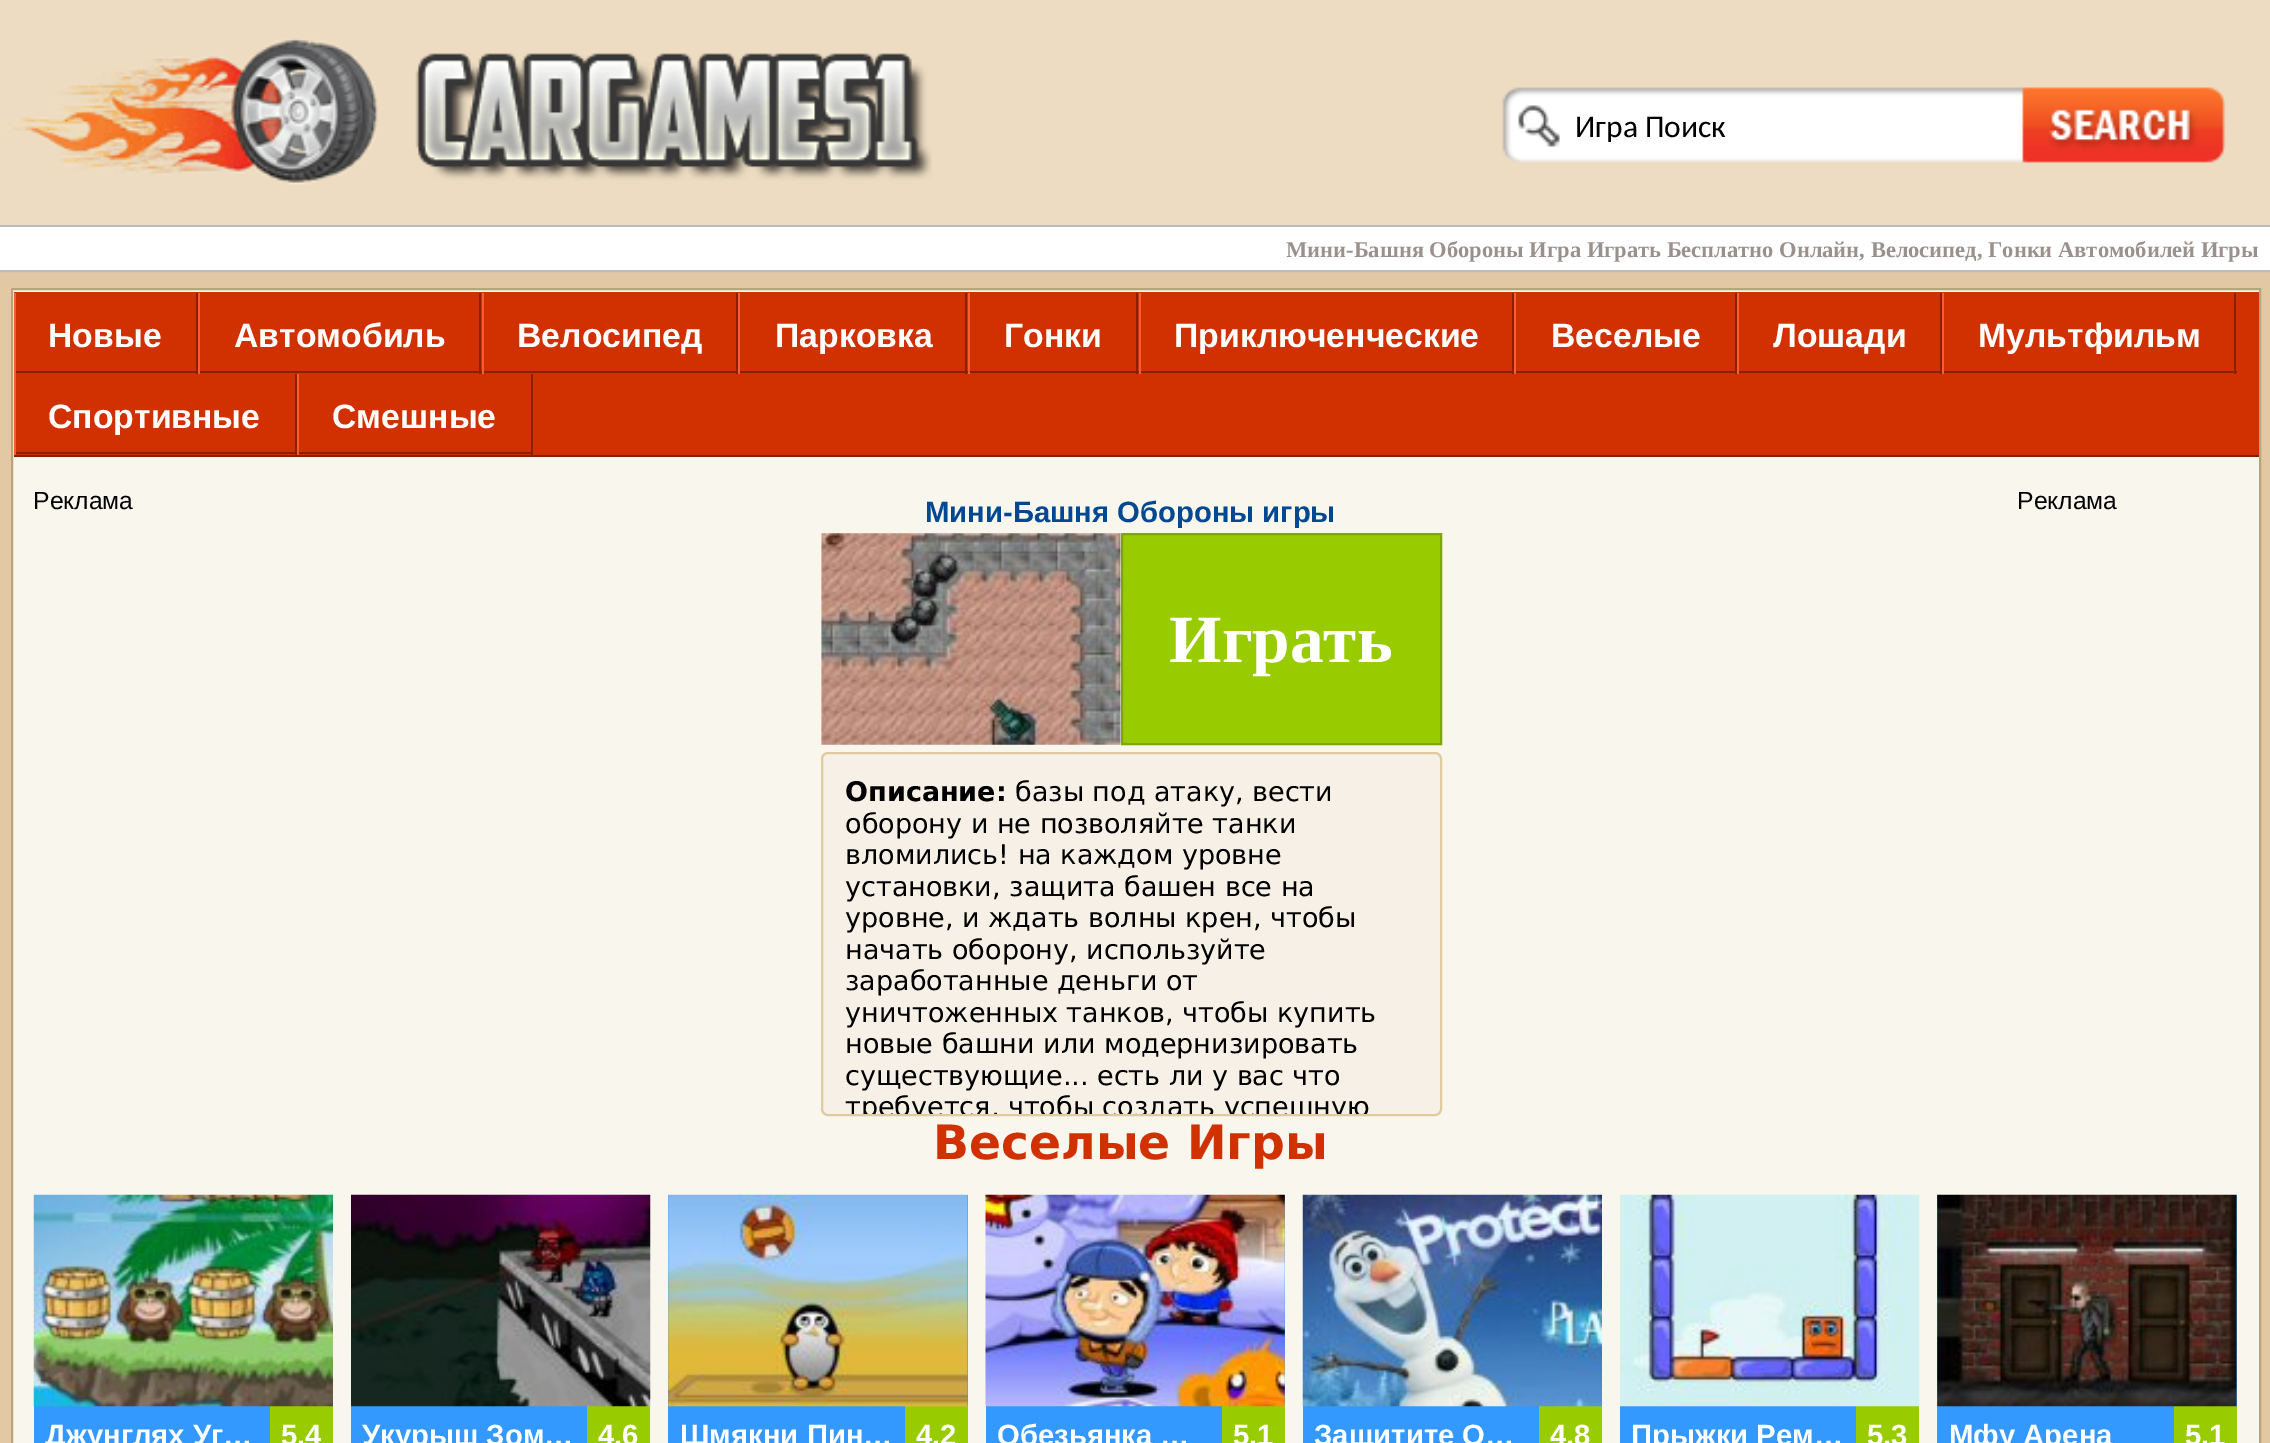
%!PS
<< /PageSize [2270 1443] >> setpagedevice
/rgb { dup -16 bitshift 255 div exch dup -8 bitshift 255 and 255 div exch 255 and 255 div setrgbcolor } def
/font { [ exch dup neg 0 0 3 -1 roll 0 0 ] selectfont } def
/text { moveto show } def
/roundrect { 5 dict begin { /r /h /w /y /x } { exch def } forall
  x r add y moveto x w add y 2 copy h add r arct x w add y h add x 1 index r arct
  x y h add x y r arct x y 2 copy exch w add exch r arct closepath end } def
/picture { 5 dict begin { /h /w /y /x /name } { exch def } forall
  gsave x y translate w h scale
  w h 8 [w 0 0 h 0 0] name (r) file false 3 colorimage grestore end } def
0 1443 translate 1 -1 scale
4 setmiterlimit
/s1 { /Carlito-Regular 31.5 font 16#000000 rgb } def
/s2 { /LiberationSerif-Bold 22.5 font 16#9B918C rgb } def
/s3 { /LiberationSans-Bold 33.75 font 16#FFFFFF rgb } def
/s4 { /LiberationSans-Regular 24.75 font 16#000000 rgb } def
/s5 { /LiberationSans-Bold 29.25 font 16#004891 rgb } def
/s6 { /LiberationSerif-Bold 67.5 font 16#FFFFFF rgb } def
/s7 { /DejaVuSans-Bold 27 font 16#000000 rgb } def
/s8 { /DejaVuSans-Regular 27 font 16#000000 rgb } def
/s9 { /DejaVuSans-Bold 47.25 font 16#D13001 rgb } def
/s10 { /LiberationSans-Bold 29.25 font 16#FFFFFF rgb } def
16#E2C8A3 rgb
0 0 2270 1443 rectfill
(pic1.raw) 0 272 2270 1 picture
16#EDDCC2 rgb
0 0 2270 225 rectfill
(pic2.raw) 5 38 927 147 picture
(pic3.raw) 1502 87 724 76 picture
s1
(Игра Поиск) 1575 137 text
16#FFFFFF rgb
0 227 2270 43 rectfill
16#BABBBC rgb
0 225 2270 2 rectfill
0 270 2270 2 rectfill
s2
(Мини-Башня Обороны Игра Играть Бесплатно Онлайн, Велосипед, Гонки Автомобилей Игры) 1286 257 text
16#F9F6ED rgb
12 289 moveto 2260 289 lineto 2260 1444 lineto 12 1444 lineto closepath gsave fill grestore
16#B8A57B rgb
2 setlinewidth
stroke
16#D13001 rgb
14 292 2245 163 rectfill
16#8B2001 rgb
14 455 2245 2 rectfill
196 293 2 81 rectfill
14 371 184 2 rectfill
16#FE5C2E rgb
14 293 2 81 rectfill
s3
(Новые) 48 347 text
16#8B2001 rgb
479 293 2 81 rectfill
198 371 284 2 rectfill
16#FE5C2E rgb
198 293 2 81 rectfill
s3
(Автомобиль) 234 347 text
16#8B2001 rgb
736 293 2 81 rectfill
482 371 256 2 rectfill
16#FE5C2E rgb
482 293 2 81 rectfill
s3
(Велосипед) 517 347 text
16#8B2001 rgb
965 293 2 81 rectfill
738 371 230 2 rectfill
16#FE5C2E rgb
738 293 2 81 rectfill
s3
(Парковка) 775 347 text
16#8B2001 rgb
1136 293 2 81 rectfill
968 371 171 2 rectfill
16#FE5C2E rgb
968 293 2 81 rectfill
s3
(Гонки) 1004 347 text
16#8B2001 rgb
1512 293 2 81 rectfill
1139 371 375 2 rectfill
16#FE5C2E rgb
1139 293 2 81 rectfill
s3
(Приключенческие) 1174 347 text
16#8B2001 rgb
1735 293 2 81 rectfill
1514 371 223 2 rectfill
16#FE5C2E rgb
1514 293 2 81 rectfill
s3
(Веселые) 1551 347 text
16#8B2001 rgb
1940 293 2 81 rectfill
1737 371 205 2 rectfill
16#FE5C2E rgb
1737 293 2 81 rectfill
s3
(Лошади) 1773 347 text
16#8B2001 rgb
2234 293 2 81 rectfill
1942 371 295 2 rectfill
16#FE5C2E rgb
1942 293 2 81 rectfill
s3
(Мультфильм) 1978 347 text
16#8B2001 rgb
295 374 2 81 rectfill
14 452 283 2 rectfill
16#FE5C2E rgb
14 374 2 81 rectfill
s3
(Спортивные) 48 428 text
16#8B2001 rgb
531 374 2 81 rectfill
297 452 236 2 rectfill
16#FE5C2E rgb
297 374 2 81 rectfill
s3
(Смешные) 332 428 text
s4
(Реклама) 33 509 text
s5
(Мини-Башня Обороны игры) 925 522 text
(pic4.raw) 821 533 300 212 picture
16#99CC00 rgb
1122 534 moveto 1441 534 lineto 1441 744 lineto 1122 744 lineto closepath gsave fill grestore
16#7EA800 rgb
stroke
s6
(Играть) 1169 662 text
16#F7F0E6 rgb
822 753 619 362 6 roundrect gsave fill grestore
16#DFCB9D rgb
stroke
s7
(Описание:) 845 801 text
s8
(базы под атаку, вести) 1015 801 text
(оборону и не позволяйте танки) 845 833 text
(вломились! на каждом уровне) 845 864 text
(установки, защита башен все на) 845 896 text
(уровне, и ждать волны крен, чтобы) 845 927 text
(начать оборону, используйте) 845 959 text
(заработанные деньги от) 845 990 text
(уничтоженных танков, чтобы купить) 845 1022 text
(новые башни или модернизировать) 845 1053 text
(существующие... есть ли у вас что) 845 1085 text
gsave
824 754 616 360 5 roundrect clip newpath
(требуется, чтобы создать успешную) 845 1116 text
grestore
s9
(Веселые Игры) 933 1159 text
s4
(Реклама) 2017 509 text
16#3399FF rgb
34 1406 236 37 rectfill
16#99CC00 rgb
270 1406 63 37 rectfill
(pic5.raw) 33 1194 300 213 picture
s10
(Джунглях Уг…) 45 1445 text
(5.4) 281 1445 text
16#3399FF rgb
351 1406 236 37 rectfill
16#99CC00 rgb
587 1406 63 37 rectfill
(pic6.raw) 351 1194 300 213 picture
s10
(Укурыш Зом…) 362 1445 text
(4.6) 598 1445 text
16#3399FF rgb
668 1195 300 248 rectfill
16#99CC00 rgb
905 1406 63 37 rectfill
(pic7.raw) 668 1194 300 213 picture
s10
(Шмякни Пин…) 680 1445 text
(4.2) 916 1445 text
16#3399FF rgb
986 1195 299 248 rectfill
16#99CC00 rgb
1222 1406 63 37 rectfill
(pic8.raw) 985 1194 300 213 picture
s10
(Обезьянка …) 997 1445 text
(5.1) 1233 1445 text
16#3399FF rgb
1303 1406 236 37 rectfill
16#99CC00 rgb
1539 1406 63 37 rectfill
(pic9.raw) 1302 1194 300 213 picture
s10
(Защитите О…) 1314 1445 text
(4.8) 1550 1445 text
16#3399FF rgb
1620 1406 236 37 rectfill
16#99CC00 rgb
1856 1406 63 37 rectfill
(pic10.raw) 1620 1194 300 213 picture
s10
(Прыжки Рем…) 1631 1445 text
(5.3) 1867 1445 text
16#3399FF rgb
1937 1195 300 248 rectfill
16#99CC00 rgb
2174 1406 63 37 rectfill
(pic11.raw) 1937 1194 300 213 picture
s10
(Мфу Арена) 1949 1445 text
(5.1) 2185 1445 text
showpage
